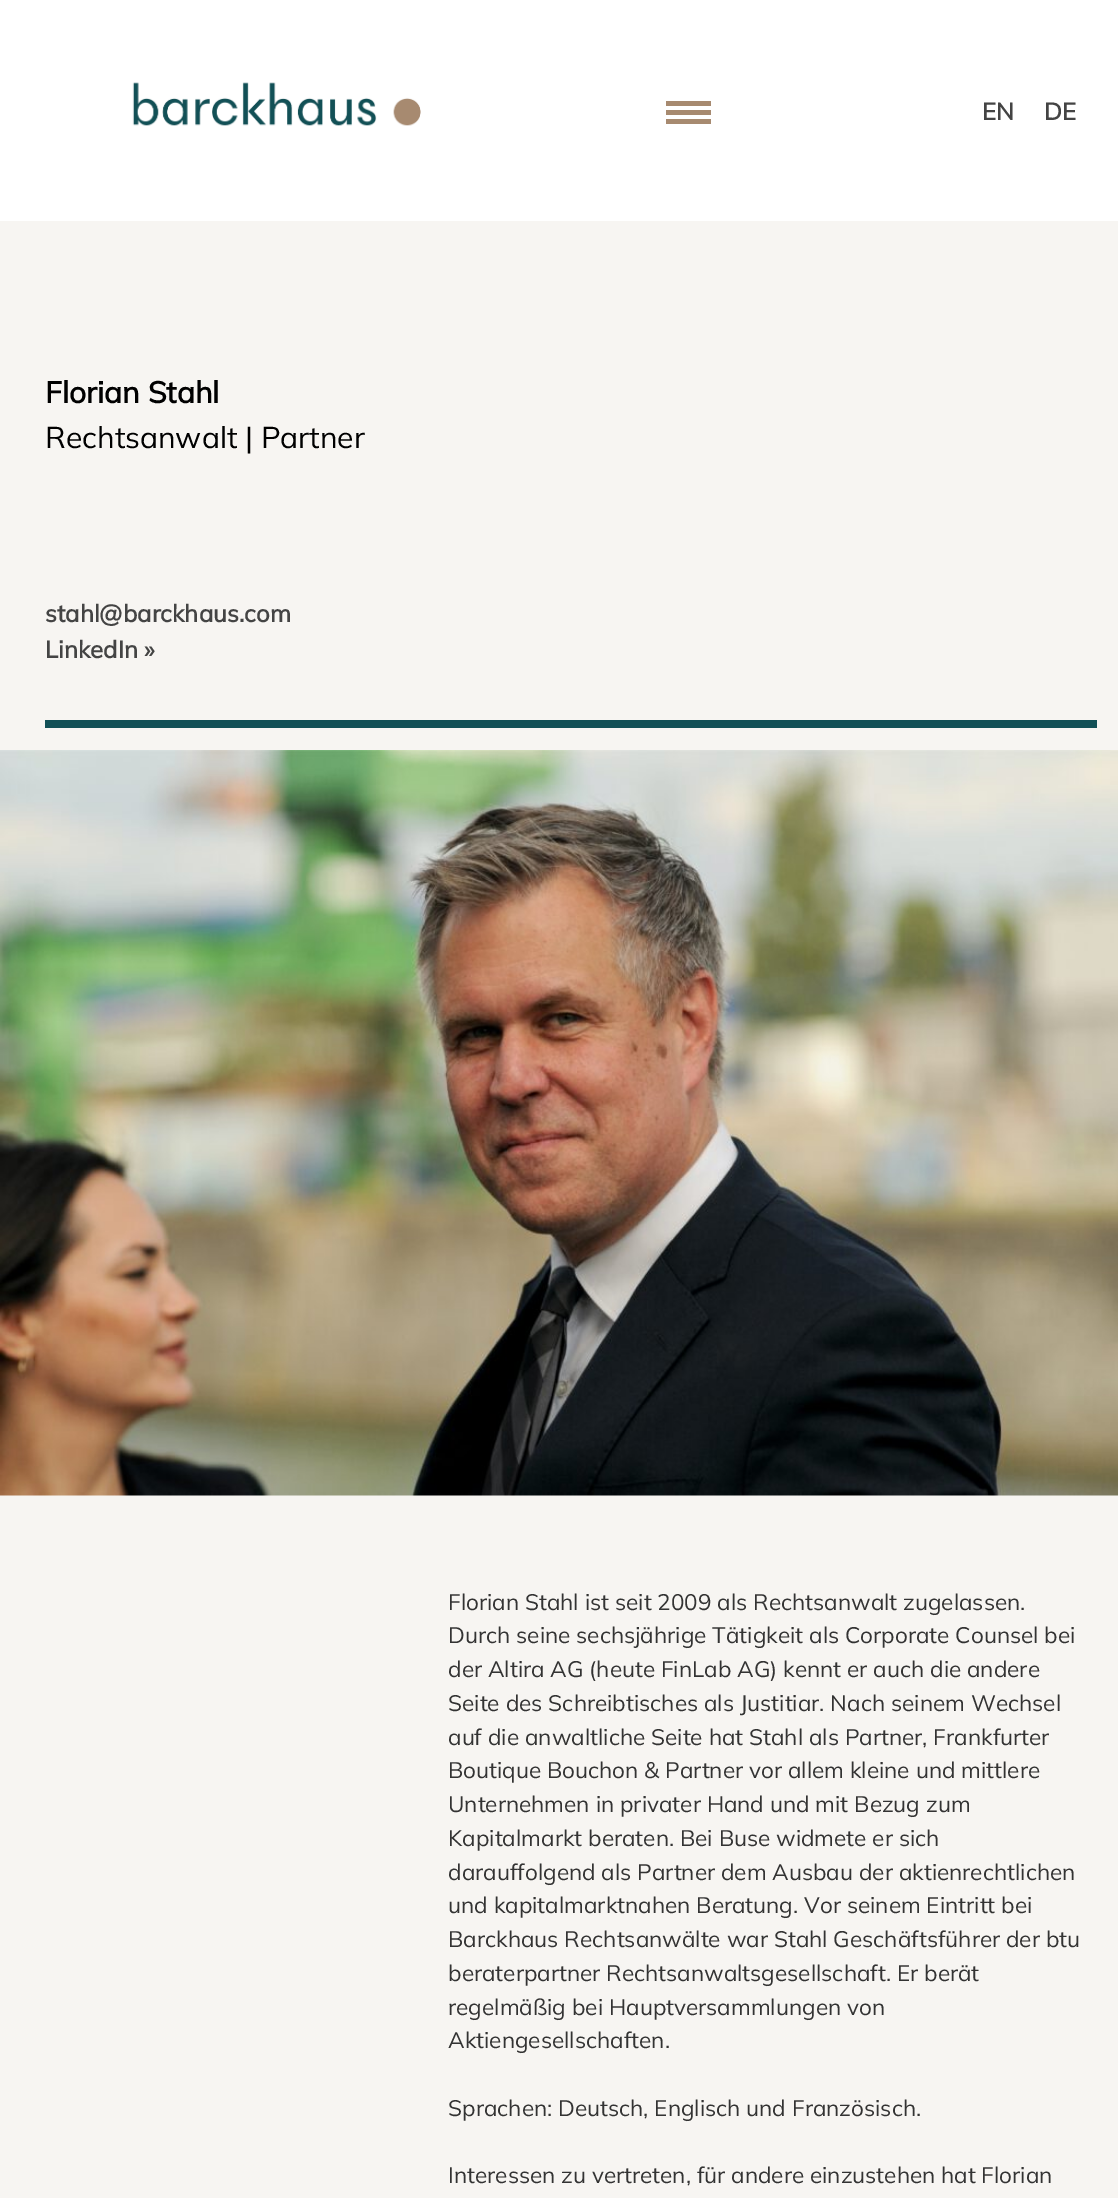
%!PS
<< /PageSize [1118 2198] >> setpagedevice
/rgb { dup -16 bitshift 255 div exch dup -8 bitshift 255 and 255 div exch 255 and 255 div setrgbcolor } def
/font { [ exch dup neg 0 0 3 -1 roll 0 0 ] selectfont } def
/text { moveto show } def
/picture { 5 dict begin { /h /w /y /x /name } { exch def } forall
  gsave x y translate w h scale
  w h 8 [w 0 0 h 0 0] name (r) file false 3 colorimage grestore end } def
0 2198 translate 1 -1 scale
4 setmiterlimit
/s1 { /Mulish-Bold 24 font 16#444444 rgb } def
/s2 { /Mulish-Bold 30 font 16#000000 rgb } def
/s3 { /Mulish-ExtraLight 30 font 16#000000 rgb } def
/s4 { /Mulish-ExtraLight 22.5 font 16#333333 rgb } def
16#FFFFFF rgb
0 0 1118 2198 rectfill
(pic1.raw) 132 82 289 44 picture
16#A78A70 rgb
666 101 45 5 rectfill
666 110 45 5 rectfill
666 119 45 5 rectfill
s1
(EN) 982 120 text
(DE) 1044 120 text
16#F7F5F2 rgb
0 221 1118 529 rectfill
s2
(Florian Stahl) 45 403 text
s3
(Rechtsanwalt | Partner) 45 448 text
s1
(stahl@barckhaus.com) 45 622 text
(LinkedIn ») 45 658 text
16#125056 rgb
45 720 1052 8 rectfill
16#F7F5F2 rgb
0 1495 1118 703 rectfill
(pic2.raw) 0 750 1118 746 picture
s4
(Florian Stahl ist seit 2009 als Rechtsanwalt zugelassen.) 448 1610 text
(Durch seine sechsjährige Tätigkeit als Corporate Counsel bei) 448 1643 text
(der Altira AG \(heute FinLab AG\) kennt er auch die andere) 448 1677 text
(Seite des Schreibtisches als Justitiar. Nach seinem Wechsel) 448 1711 text
(auf die anwaltliche Seite hat Stahl als Partner, Frankfurter) 448 1745 text
(Boutique Bouchon & Partner vor allem kleine und mittlere) 448 1778 text
(Unternehmen in privater Hand und mit Bezug zum) 448 1812 text
(Kapitalmarkt beraten. Bei Buse widmete er sich) 448 1846 text
(darauffolgend als Partner dem Ausbau der aktienrechtlichen) 448 1880 text
(und kapitalmarktnahen Beratung. Vor seinem Eintritt bei) 448 1913 text
(Barckhaus Rechtsanwälte war Stahl Geschäftsführer der btu) 448 1947 text
(beraterpartner Rechtsanwaltsgesellschaft. Er berät) 448 1981 text
(regelmäßig bei Hauptversammlungen von) 448 2015 text
(Aktiengesellschaften.) 448 2048 text
(Sprachen: Deutsch, Englisch und Französisch.) 448 2116 text
(Interessen zu vertreten, für andere einzustehen hat Florian) 448 2183 text
showpage
